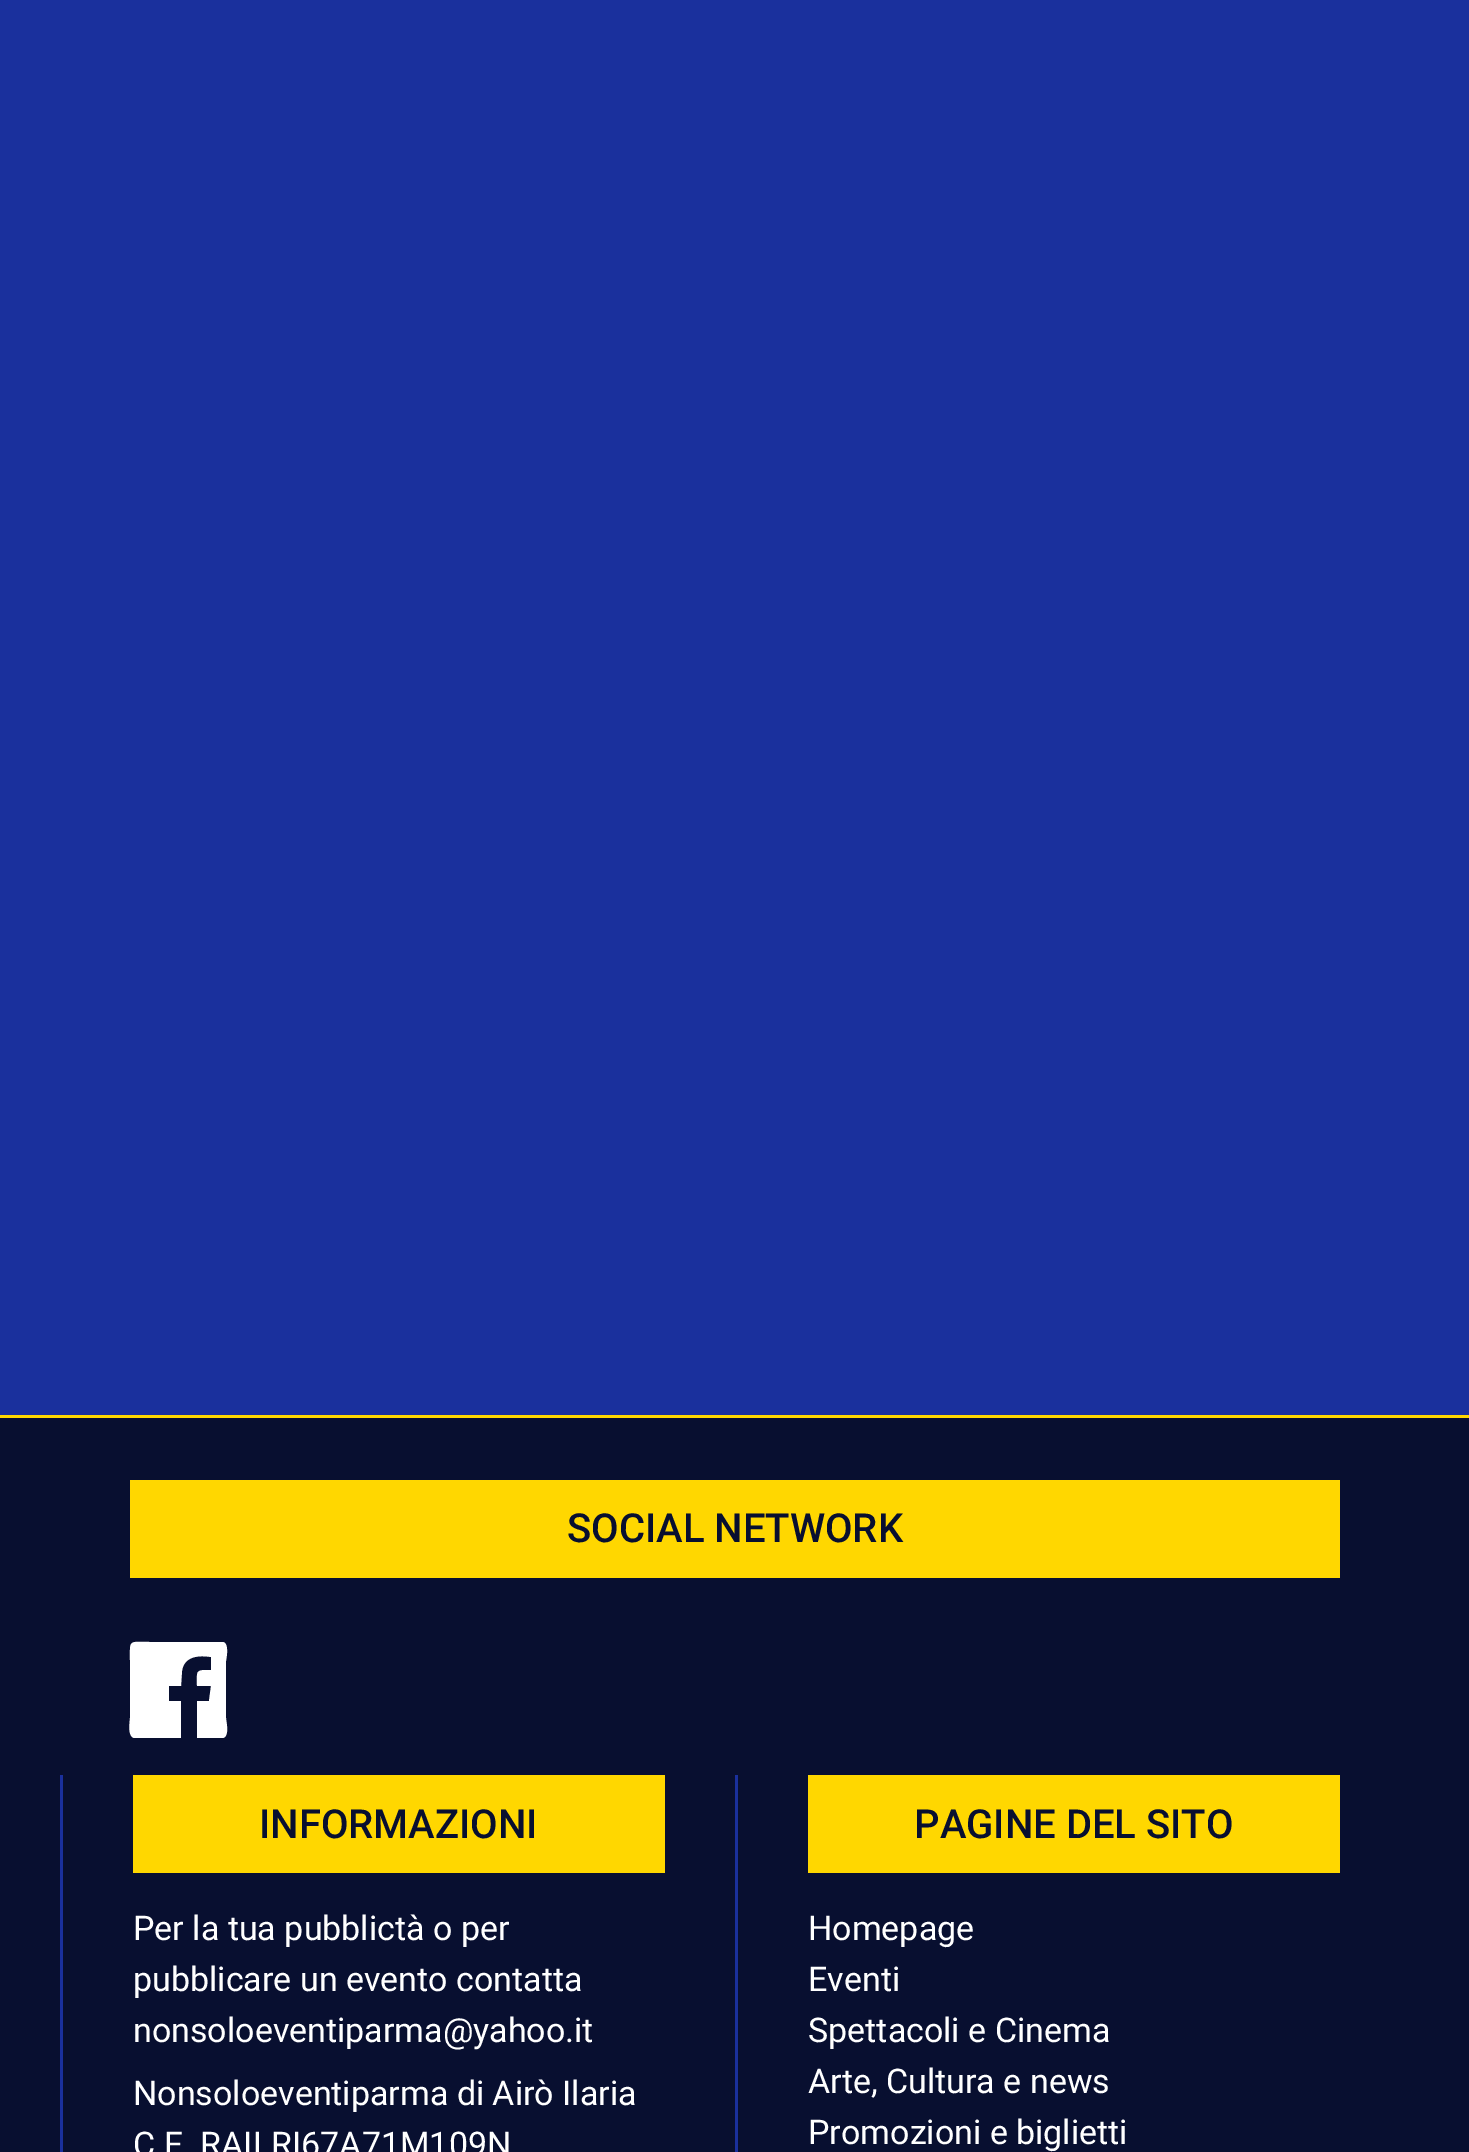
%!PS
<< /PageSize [1469 2152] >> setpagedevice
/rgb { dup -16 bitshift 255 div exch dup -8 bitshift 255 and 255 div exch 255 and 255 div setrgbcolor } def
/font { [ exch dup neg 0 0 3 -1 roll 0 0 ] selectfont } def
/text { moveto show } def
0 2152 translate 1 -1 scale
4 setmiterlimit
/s1 { /Roboto-Medium 40 font 16#080F30 rgb } def
/s2 { /Roboto-Regular 34 font 16#FFFFFF rgb } def
16#1A309D rgb
0 0 1469 2152 rectfill
16#080F30 rgb
0 1418 1469 734 rectfill
16#FFD700 rgb
0 1415 1469 3 rectfill
130 1480 1210 98 rectfill
s1
(SOCIAL NETWORK) 567 1542 text
16#FFFFFF rgb
221 1642 moveto 223 1642 224 1642 225 1643 curveto 229 1647 226 1660 226 1661 curveto 226 1718 lineto 226 1721 230 1736 223 1738 curveto 197 1738 lineto 197 1701 lineto 209 1701 lineto 211 1686 lineto 197 1686 lineto 197 1670 195 1670 211 1670 curveto 211 1657 lineto 199 1655 184 1656 182 1671 curveto 181 1686 lineto 169 1686 lineto 169 1701 lineto 181 1701 lineto 181 1738 lineto 134 1738 lineto 127 1736 130 1721 130 1718 curveto 130 1661 lineto 130 1639 128 1642 150 1642 curveto closepath fill
16#1A309D rgb
60 1775 3 377 rectfill
16#FFD700 rgb
133 1775 532 98 rectfill
s1
(INFORMAZIONI) 259 1838 text
s2
(Per la tua pubblictà o per) 133 1940 text
(pubblicare un evento contatta) 133 1991 text
(nonsoloeventiparma@yahoo.it) 133 2042 text
(Nonsoloeventiparma di Airò Ilaria) 133 2105 text
(C.F. RAILRI67A71M109N) 133 2156 text
16#1A309D rgb
735 1775 3 377 rectfill
16#FFD700 rgb
808 1775 532 98 rectfill
s1
(PAGINE DEL SITO) 914 1838 text
s2
(Homepage) 808 1940 text
(Eventi) 808 1991 text
(Spettacoli e Cinema) 808 2042 text
(Arte, Cultura e news) 808 2093 text
(Promozioni e biglietti) 808 2144 text
showpage
